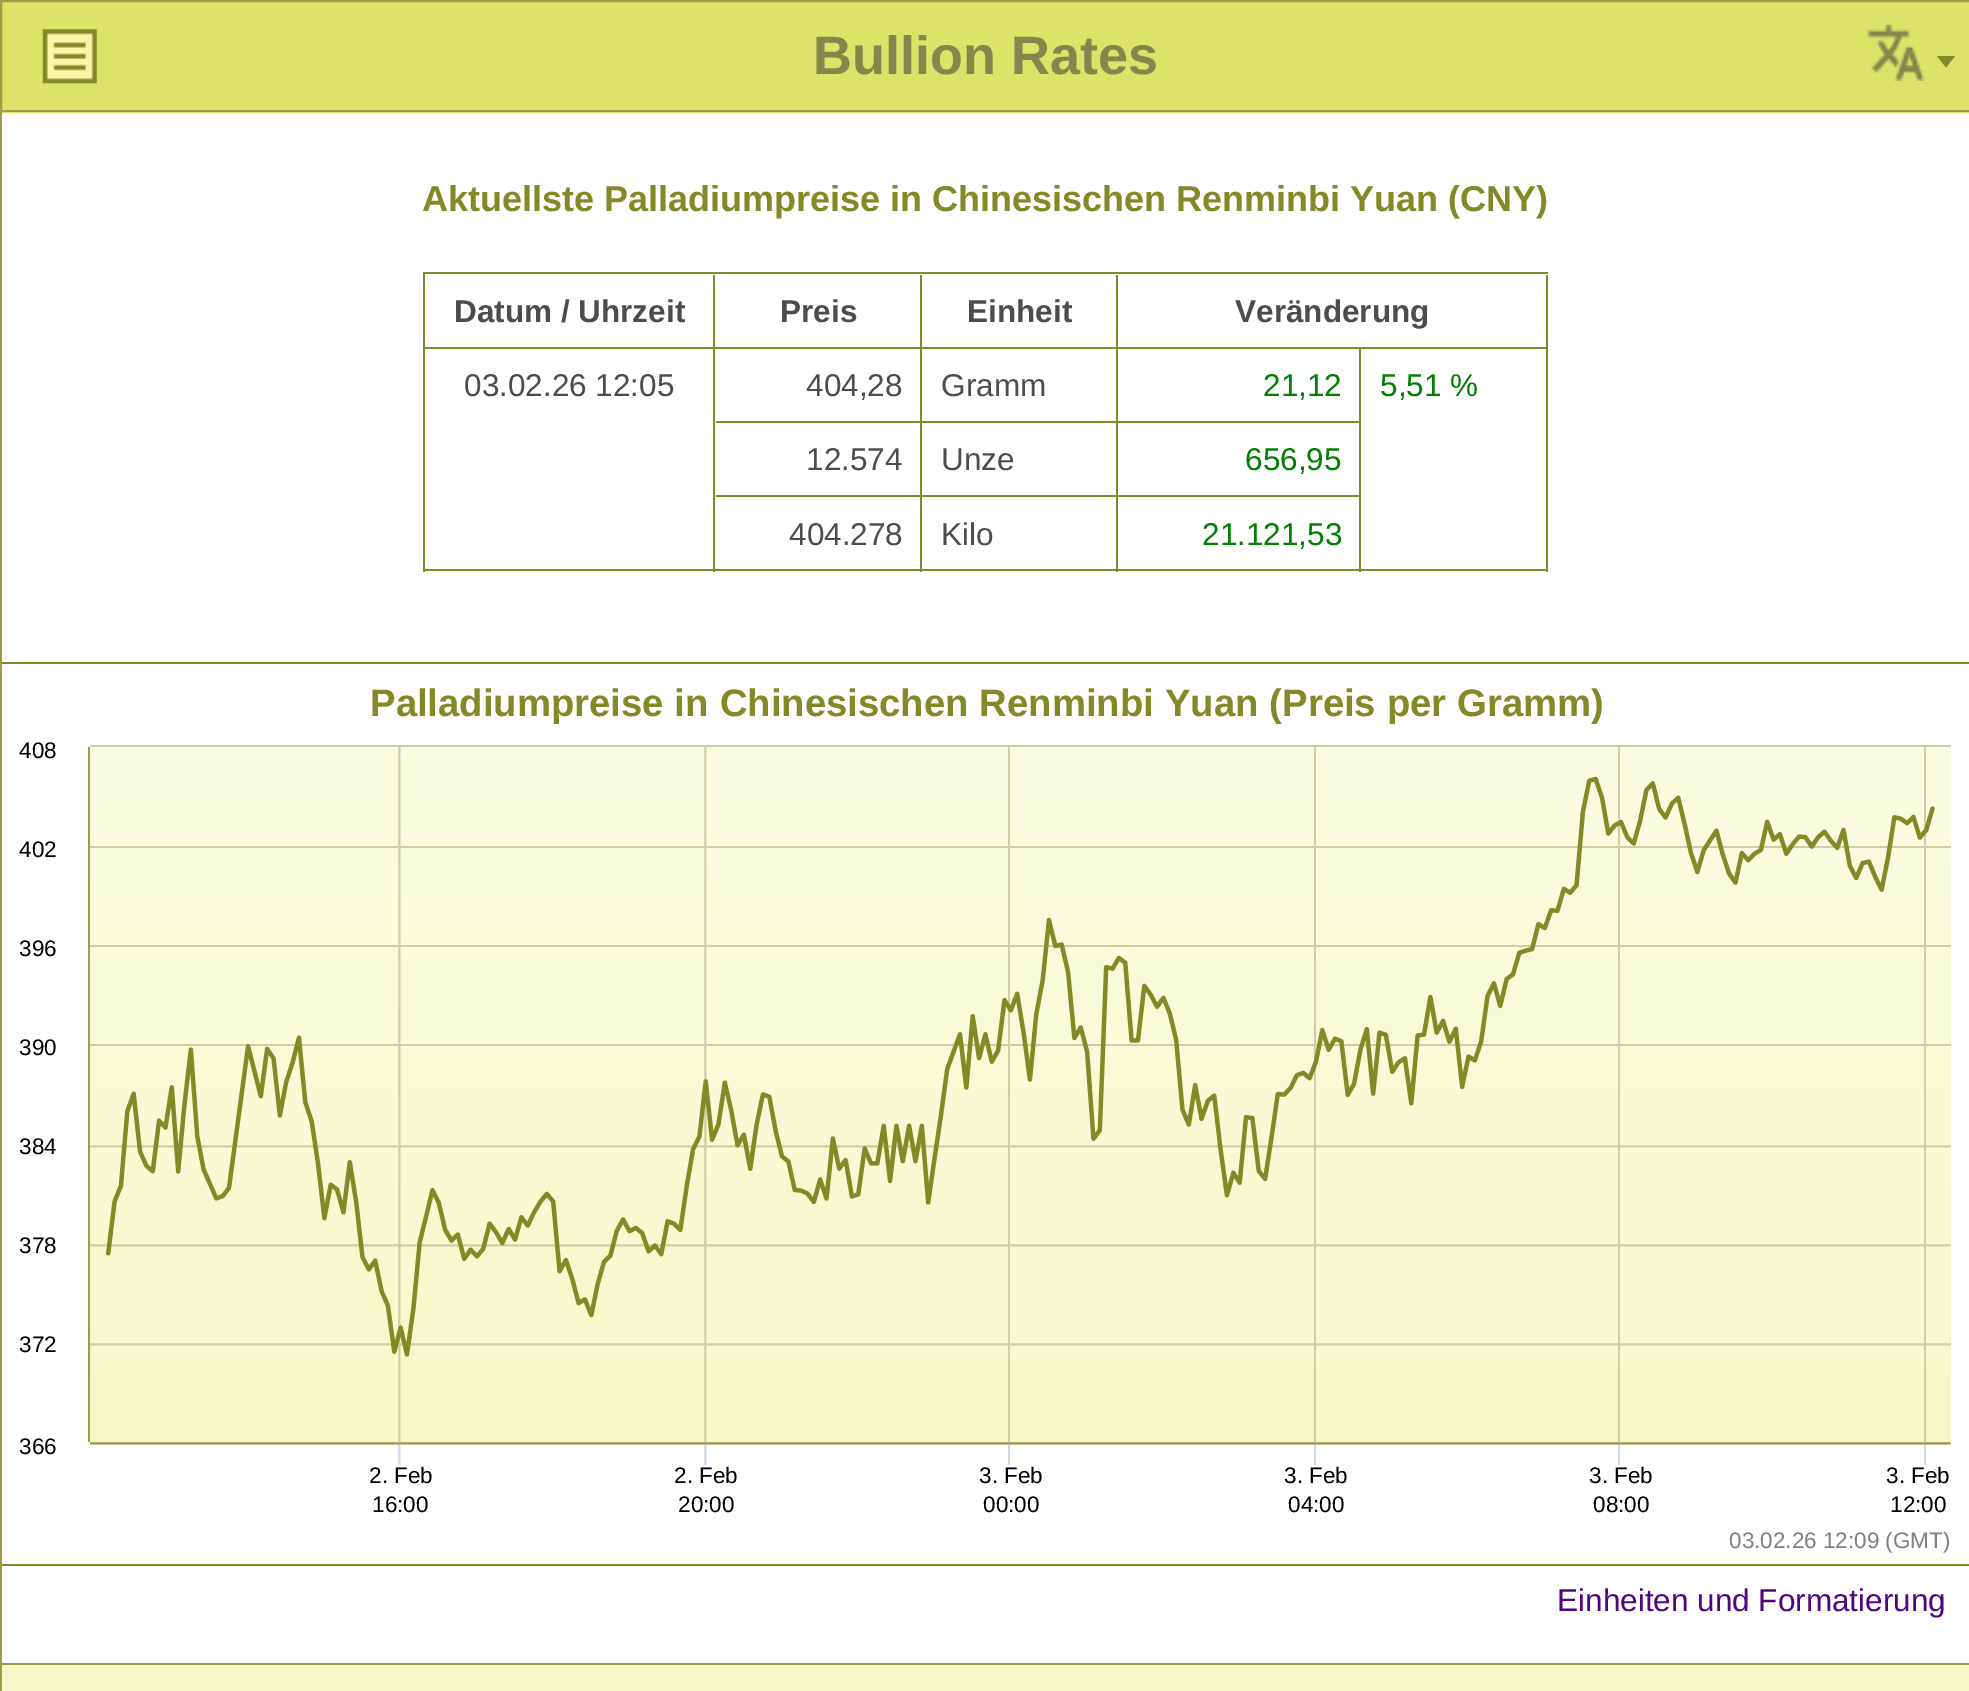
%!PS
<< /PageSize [1969 1691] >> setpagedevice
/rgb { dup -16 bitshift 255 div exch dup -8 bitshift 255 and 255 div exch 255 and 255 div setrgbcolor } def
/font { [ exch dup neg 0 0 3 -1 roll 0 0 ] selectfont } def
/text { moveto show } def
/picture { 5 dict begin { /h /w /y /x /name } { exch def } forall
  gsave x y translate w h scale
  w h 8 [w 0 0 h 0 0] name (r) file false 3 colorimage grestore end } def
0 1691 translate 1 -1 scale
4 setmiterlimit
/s1 { /LiberationSans-Bold 54 font 16#84864C rgb } def
/s2 { /LiberationSans-Bold 36 font 16#828926 rgb } def
/s3 { /LiberationSans-Bold 31.5 font 16#4C4C4C rgb } def
/s4 { /LiberationSans-Regular 31.5 font 16#4C4C4C rgb } def
/s5 { /LiberationSans-Regular 31.5 font 16#008000 rgb } def
/s6 { /LiberationSans-Regular 22.5 font 16#000000 rgb } def
/s7 { /LiberationSans-Regular 22.5 font 16#808080 rgb } def
/s8 { /LiberationSans-Regular 31.5 font 16#50047E rgb } def
16#DBE369 rgb
0 0 1969 1691 rectfill
16#9E9B47 rgb
2 setlinewidth
1 1 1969 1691 rectstroke
2 110 1967 2 rectfill
(pic1.raw) 42 29 55 55 picture
s1
(Bullion Rates) 813 74 text
(pic2.raw) 1867 24 57 57 picture
16#828926 rgb
1937 56 moveto 1955 56 lineto 1946 67.5 lineto closepath fill
16#FFFFFF rgb
2 113 1967 1550 rectfill
s2
(Aktuellste Palladiumpreise in Chinesischen Renminbi Yuan \(CNY\)) 422 211 text
423 272 1125 2 rectfill
423 272 2 300 rectfill
713 275 2 297 rectfill
425 347 291 2 rectfill
s3
(Datum / Uhrzeit) 454 322 text
16#828926 rgb
920 275 2 297 rectfill
716 347 207 2 rectfill
s3
(Preis) 780 322 text
16#828926 rgb
1116 275 2 297 rectfill
923 347 195 2 rectfill
s3
(Einheit) 967 322 text
16#828926 rgb
1546 275 2 297 rectfill
1118 347 430 2 rectfill
s3
(Veränderung) 1235 322 text
16#828926 rgb
425 569 693 2 rectfill
s4
(03.02.26 12:05) 464 396 text
16#828926 rgb
716 421 402 2 rectfill
s4
(404,28) 806 396 text
(Gramm) 941 396 text
16#828926 rgb
1359 349 2 223 rectfill
1118 421 243 2 rectfill
s5
(21,12) 1263 396 text
16#828926 rgb
1118 569 430 2 rectfill
s5
(5,51 %) 1380 396 text
16#828926 rgb
716 495 645 2 rectfill
s4
(12.574) 806 470 text
(Unze) 941 470 text
s5
(656,95) 1245 470 text
s4
(404.278) 789 545 text
(Kilo) 941 545 text
s5
(21.121,53) 1202 545 text
16#828926 rgb
2 662 1967 2 rectfill
2 1564 1967 2 rectfill
/LiberationSans-Bold 38.25 font
370 716 moveto 0.5 0 32 (Palladiumpreise in Chinesischen Renminbi Yuan \(Preis per Gramm\)) widthshow
s6
(408) 19 758 text
(pic3.raw) 88 745 1863 720 picture
(402) 19 857 text
(396) 19 956 text
(390) 19 1055 text
(384) 19 1154 text
(378) 19 1253 text
(372) 19 1352 text
(366) 19 1454 text
(2. Feb) 369 1483 text
(2. Feb) 674 1483 text
(3. Feb) 979 1483 text
(3. Feb) 1284 1483 text
(3. Feb) 1589 1483 text
(3. Feb) 1886 1483 text
(16:00) 372 1512 text
(20:00) 678 1512 text
(00:00) 983 1512 text
(04:00) 1288 1512 text
(08:00) 1593 1512 text
(12:00) 1890 1512 text
s7
(03.02.26 12:09 \(GMT\)) 1729 1548 text
s8
(Einheiten und Formatierung) 1557 1611 text
16#9E9B47 rgb
2 1663 1967 2 rectfill
16#F5F9C7 rgb
2 1665 1967 26 rectfill
showpage
